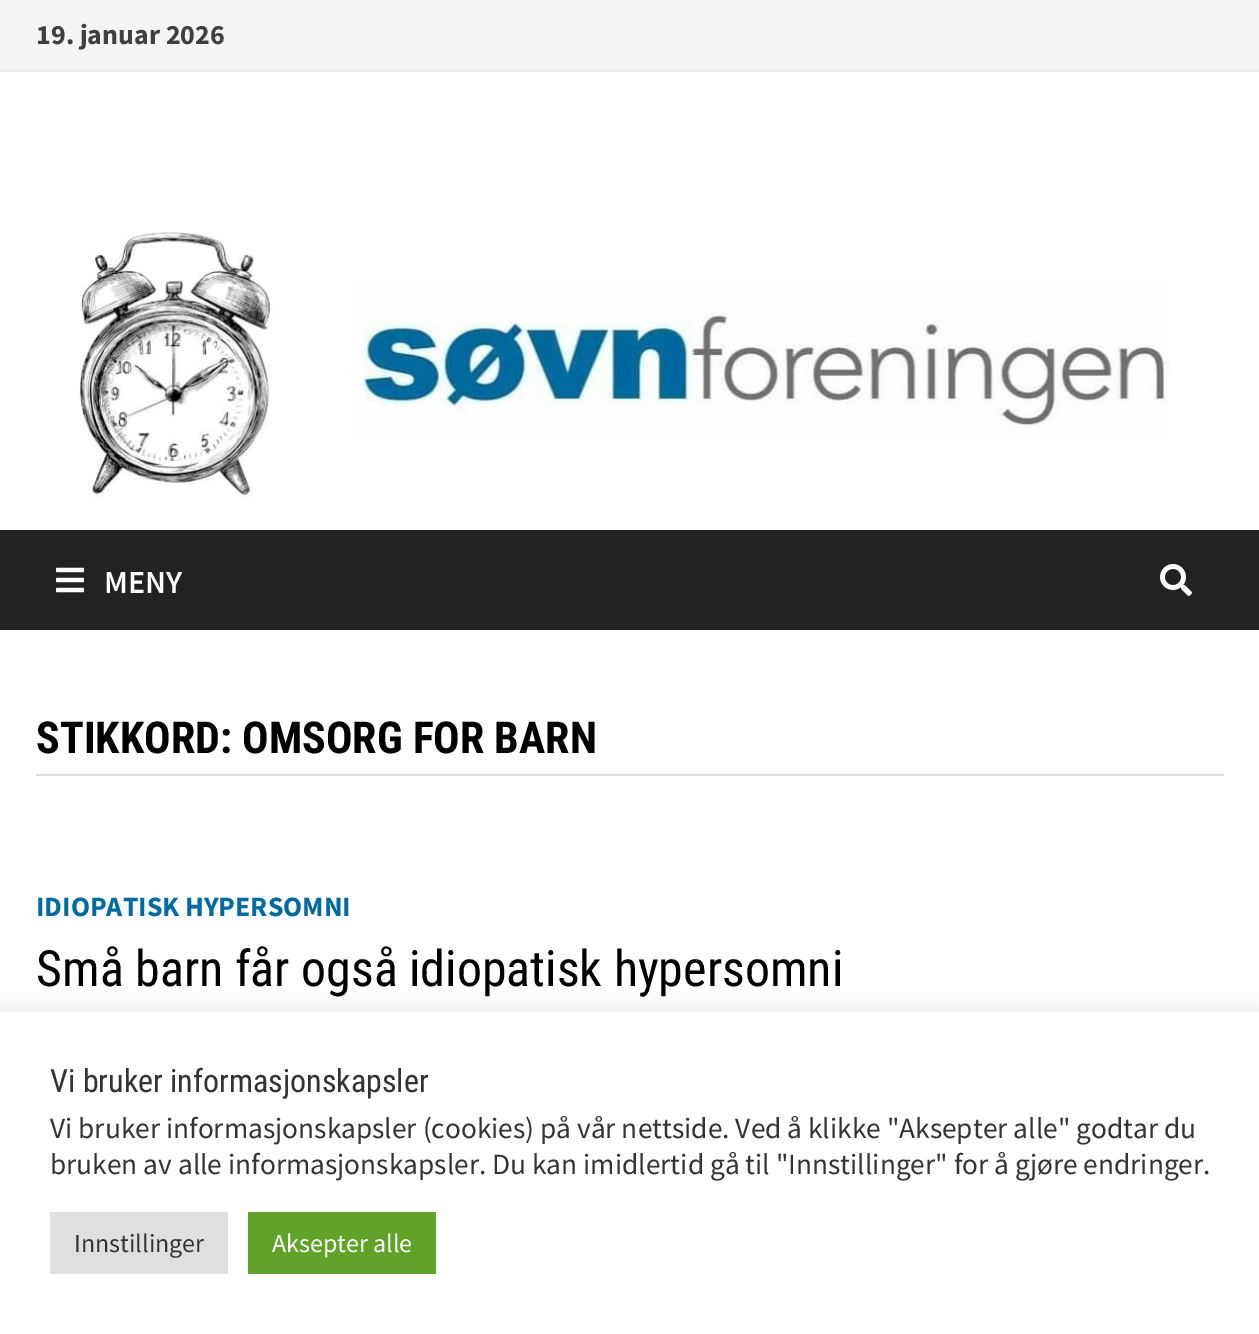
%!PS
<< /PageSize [1259 1334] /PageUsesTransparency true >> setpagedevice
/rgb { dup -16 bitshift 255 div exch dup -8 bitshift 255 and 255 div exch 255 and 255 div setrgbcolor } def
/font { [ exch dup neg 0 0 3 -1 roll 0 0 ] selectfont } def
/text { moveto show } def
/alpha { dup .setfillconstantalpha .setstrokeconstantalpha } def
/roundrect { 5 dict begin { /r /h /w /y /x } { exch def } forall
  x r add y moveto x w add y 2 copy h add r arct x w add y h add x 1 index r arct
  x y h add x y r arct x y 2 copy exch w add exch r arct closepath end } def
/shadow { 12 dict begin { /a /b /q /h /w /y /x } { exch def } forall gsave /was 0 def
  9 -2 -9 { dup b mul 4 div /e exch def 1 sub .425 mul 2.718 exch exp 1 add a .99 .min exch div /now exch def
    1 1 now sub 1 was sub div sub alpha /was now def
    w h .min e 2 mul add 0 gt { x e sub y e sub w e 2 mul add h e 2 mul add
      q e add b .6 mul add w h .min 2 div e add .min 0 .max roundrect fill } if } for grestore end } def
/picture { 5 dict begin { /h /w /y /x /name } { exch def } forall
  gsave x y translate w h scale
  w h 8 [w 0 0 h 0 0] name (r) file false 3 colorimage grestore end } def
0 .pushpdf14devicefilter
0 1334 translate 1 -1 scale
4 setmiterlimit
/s1 { /SourceSansPro-Bold 28 font 16#404040 rgb } def
/s2 { /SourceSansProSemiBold-SemiBold 32 font 16#FFFFFF rgb } def
/s3 { /RobotoCondensed-Bold 44 font 16#000000 rgb } def
/s4 { /SourceSansPro-Bold 28 font 16#006AA2 rgb } def
/s5 { /RobotoCondensed-Regular 50 font 16#000000 rgb } def
/s6 { /RobotoCondensed-Regular 32 font 16#333333 rgb } def
/s7 { /SourceSansPro-Regular 29.35 font 16#333333 rgb } def
/s8 { /SourceSansPro-Regular 26 font 16#333333 rgb } def
/s9 { /SourceSansPro-Regular 26 font 16#FFFFFF rgb } def
16#FFFFFF rgb
0 0 1259 1334 rectfill
16#F5F5F5 rgb
0 0 1259 70 rectfill
16#EEEEEE rgb
0 70 1259 2 rectfill
s1
(19. januar 2026) 36 44 text
(pic1.raw) 79 231 1091 269 picture
16#222222 rgb
0 530 1259 100 rectfill
(pic2.raw) 56 567 28 26 picture
s2
(MENY) 104 593 text
(pic3.raw) 1160 564 32 32 picture
16#DDDDDD rgb
36 774 1188 2 rectfill
s3
(STIKKORD: OMSORG FOR BARN) 36 753 text
s4
(IDIOPATISK HYPERSOMNI) 36 916 text
s5
(Små barn får også idiopatisk hypersomni) 36 986 text
16#ACABAB rgb
0 1010 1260 322 0 10 0.3 shadow
16#FFFFFF rgb
0 1012 1259 322 rectfill
s6
(Vi bruker informasjonskapsler) 50 1092 text
s7
(Vi bruker informasjonskapsler \(cookies\) på vår nettside. Ved å klikke "Aksepter alle" godtar du) 50 1138 text
(bruken av alle informasjonskapsler. Du kan imidlertid gå til "Innstillinger" for å gjøre endringer.) 50 1174 text
16#DEDFE0 rgb
50 1212 178 62 rectfill
s8
(Innstillinger) 74 1252 text
16#61A229 rgb
248 1212 188 62 rectfill
s9
(Aksepter alle) 272 1252 text
.poppdf14devicefilter showpage
